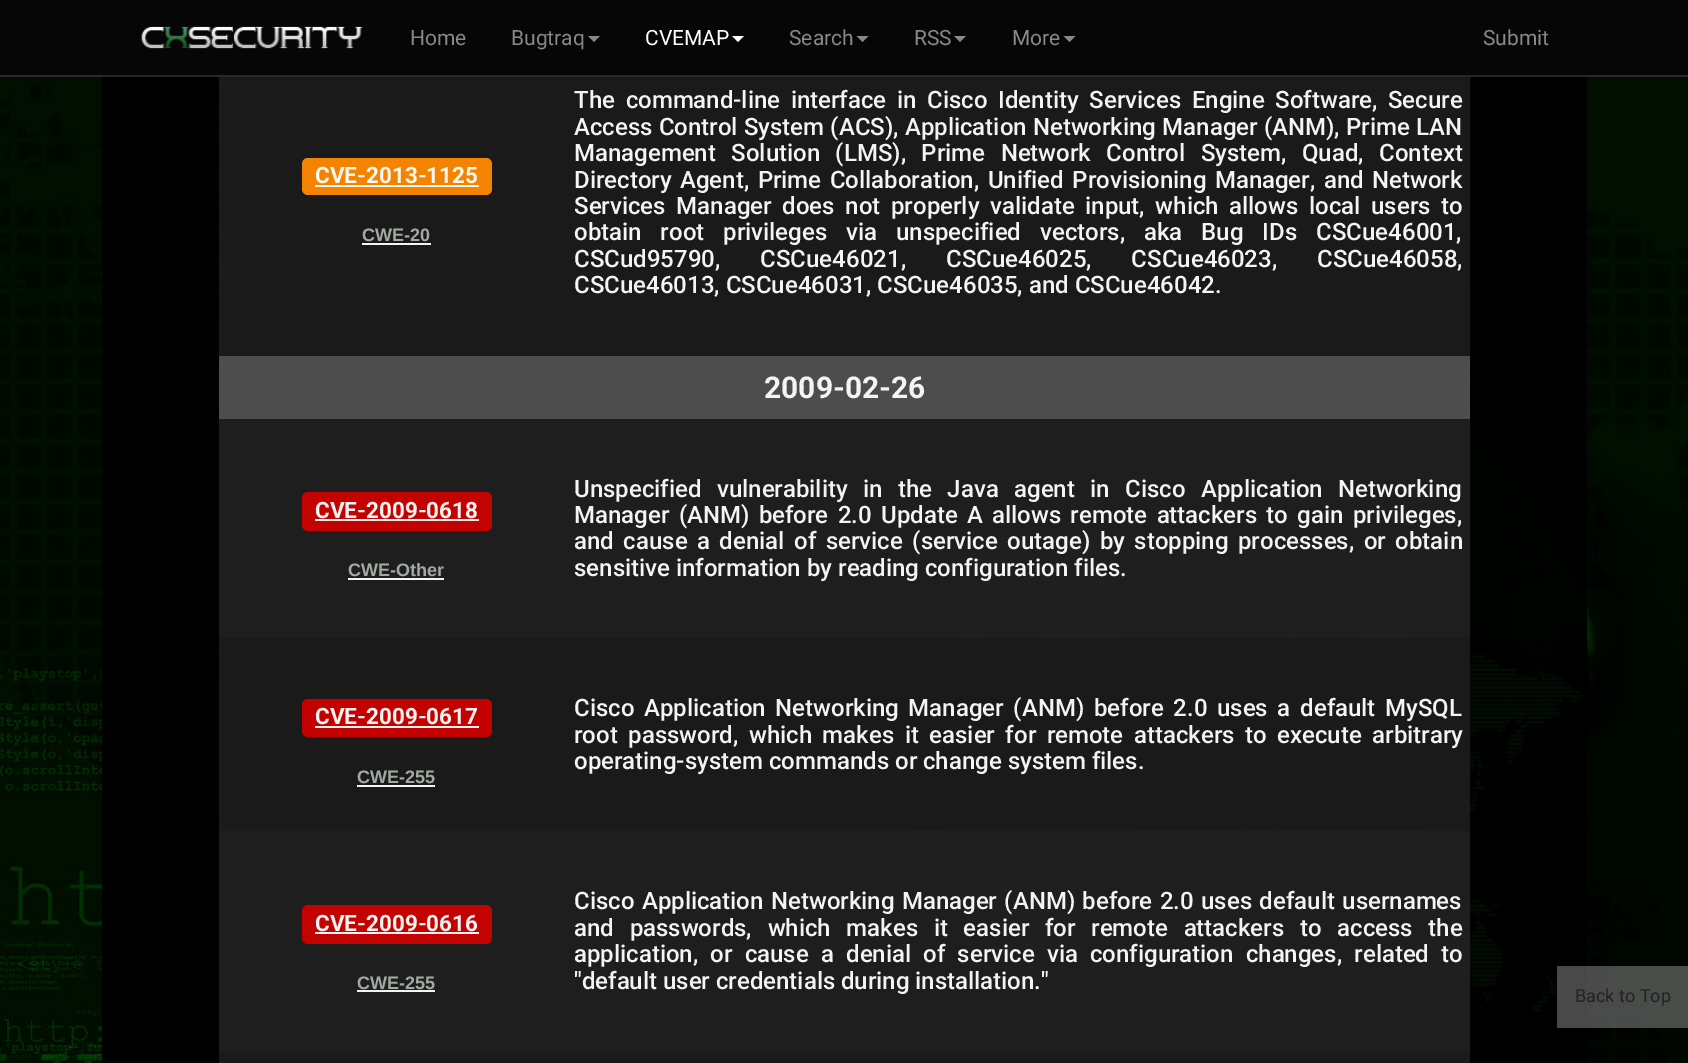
%!PS
<< /PageSize [1688 1063] /PageUsesTransparency true >> setpagedevice
/rgb { dup -16 bitshift 255 div exch dup -8 bitshift 255 and 255 div exch 255 and 255 div setrgbcolor } def
/font { [ exch dup neg 0 0 3 -1 roll 0 0 ] selectfont } def
/text { moveto show } def
/alpha { dup .setfillconstantalpha .setstrokeconstantalpha } def
/roundrect { 5 dict begin { /r /h /w /y /x } { exch def } forall
  x r add y moveto x w add y 2 copy h add r arct x w add y h add x 1 index r arct
  x y h add x y r arct x y 2 copy exch w add exch r arct closepath end } def
/picture { 5 dict begin { /h /w /y /x /name } { exch def } forall
  gsave x y translate w h scale
  w h 8 [w 0 0 h 0 0] name (r) file false 3 colorimage grestore end } def
0 .pushpdf14devicefilter
0 1063 translate 1 -1 scale
4 setmiterlimit
/s1 { /Roboto-Regular 21 font 16#888888 rgb } def
/s2 { /Roboto-Regular 21 font 16#FFFFFF rgb } def
/s3 { /Roboto-Bold 22.5 font 16#FEF9F2 rgb } def
/s4 { /LiberationSans-Bold 18 font 16#A1AAA1 rgb } def
/s5 { /Roboto-Medium 24 font 16#F4F4F4 rgb } def
/s6 { /Roboto-Bold 30 font 16#F4F4F4 rgb } def
/s7 { /Roboto-Bold 22.5 font 16#FCF2F2 rgb } def
/s8 { /Roboto-Regular 18 font 16#212221 rgb } def
16#FFFFFF rgb
0 0 1688 1063 rectfill
(pic1.raw) 0 77 1688 986 picture
16#060606 rgb
0 0 1688 75 rectfill
16#282828 rgb
0 75 1688 2 rectfill
(pic2.raw) 141 26 222 23 picture
s1
(Home) 410 45 text
(Bugtraq) 511 45 text
588 36 moveto 600 36 lineto 594 42 lineto closepath fill
s2
(CVEMAP) 645 45 text
732 36 moveto 744 36 lineto 738 42 lineto closepath fill
s1
(Search) 789 45 text
856.5 36 moveto 868.5 36 lineto 862.5 42 lineto closepath fill
(RSS) 914 45 text
954 36 moveto 966 36 lineto 960 42 lineto closepath fill
(More) 1012 45 text
1063.5 36 moveto 1075.5 36 lineto 1069.5 42 lineto closepath fill
(Submit) 1483 45 text
0.95 alpha
16#000000 rgb
102 77 68 986 rectfill
170 77 1350 986 rectfill
1 alpha
16#1A1A1A rgb
219 77 356 279 rectfill
16#F48301 rgb
302 158 190 37 6 roundrect fill
s3
(CVE-2013-1125) 315 183 text
315 185 164 2 rectfill
s4
(CWE-20) 362 241 text
16#F4F4F4 rgb
362 243 69 2 rectfill
0.95 alpha
16#1B1B1B rgb
575 77 888 279 rectfill
/Roboto-Medium 24 font
1 alpha
16#F4F4F4 rgb
574 108 moveto 4.75 0 32 (The command-line interface in Cisco Identity Services Engine Software, Secure) widthshow
574 135 moveto 0.25 0 32 (Access Control System \(ACS\), Application Networking Manager \(ANM\), Prime LAN) widthshow
574 161 moveto 9.5 0 32 (Management Solution \(LMS\), Prime Network Control System, Quad, Context) widthshow
574 188 moveto 2.5 0 32 (Directory Agent, Prime Collaboration, Unified Provisioning Manager, and Network) widthshow
574 214 moveto 4.75 0 32 (Services Manager does not properly validate input, which allows local users to) widthshow
574 240 moveto 13 0 32 (obtain root privileges via unspecified vectors, aka Bug IDs CSCue46001,) widthshow
574 267 moveto 34 0 32 (CSCud95790, CSCue46021, CSCue46025, CSCue46023, CSCue46058,) widthshow
(CSCue46013, CSCue46031, CSCue46035, and CSCue46042.) 574 293 text
16#1A1A1A rgb
1463 77 7 279 rectfill
0.95 alpha
16#505150 rgb
219 356 1251 63 rectfill
1 alpha
s6
(2009-02-26) 764 398 text
16#1E1E1E rgb
219 419 356 219 rectfill
16#C30202 rgb
302 492 190 39 6 roundrect fill
s7
(CVE-2009-0618) 315 518 text
315 519 164 2 rectfill
s4
(CWE-Other) 348 576 text
16#F4F4F4 rgb
348 578 96 2 rectfill
0.95 alpha
16#202020 rgb
575 419 888 219 rectfill
/Roboto-Medium 24 font
1 alpha
16#F4F4F4 rgb
574 497 moveto 9.5 0 32 (Unspecified vulnerability in the Java agent in Cisco Application Networking) widthshow
574 523 moveto 3.4 0 32 (Manager \(ANM\) before 2.0 Update A allows remote attackers to gain privileges,) widthshow
574 549 moveto 3.6 0 32 (and cause a denial of service \(service outage\) by stopping processes, or obtain) widthshow
(sensitive information by reading configuration files.) 574 576 text
16#1E1E1E rgb
1463 419 7 219 rectfill
0.95 alpha
16#1B1B1B rgb
219 638 356 193 rectfill
1 alpha
16#C30101 rgb
302 699 190 38 6 roundrect fill
s7
(CVE-2009-0617) 315 724 text
315 726 164 2 rectfill
s4
(CWE-255) 357 783 text
16#F2F3F2 rgb
357 785 78 2 rectfill
0.95 alpha
16#1B1B1B rgb
575 638 888 193 rectfill
/Roboto-Medium 24 font
1 alpha
16#F4F4F4 rgb
574 716 moveto 3.75 0 32 (Cisco Application Networking Manager \(ANM\) before 2.0 uses a default MySQL) widthshow
574 743 moveto 4.6 0 32 (root password, which makes it easier for remote attackers to execute arbitrary) widthshow
(operating-system commands or change system files.) 574 769 text
0.95 alpha
16#1B1B1B rgb
1463 638 7 193 rectfill
16#202020 rgb
219 831 356 221 rectfill
1 alpha
16#C30202 rgb
302 905 190 39 6 roundrect fill
s7
(CVE-2009-0616) 315 931 text
315 932 164 2 rectfill
s4
(CWE-255) 357 989 text
16#F4F4F4 rgb
357 990 78 2 rectfill
0.95 alpha
16#202020 rgb
575 831 888 221 rectfill
/Roboto-Medium 24 font
1 alpha
16#F4F4F4 rgb
574 909 moveto 1.5 0 32 (Cisco Application Networking Manager \(ANM\) before 2.0 uses default usernames) widthshow
574 936 moveto 9.75 0 32 (and passwords, which makes it easier for remote attackers to access the) widthshow
574 962 moveto 6.25 0 32 (application, or cause a denial of service via configuration changes, related to) widthshow
("default user credentials during installation.") 574 989 text
0.95 alpha
16#202020 rgb
1463 831 7 221 rectfill
1 alpha
16#1A1A1A rgb
219 1052 1251 11 rectfill
0.95 alpha
16#000000 rgb
1520 77 67 986 rectfill
0.39 alpha
16#BCBCBC rgb
1557 966 131 62 rectfill
1 alpha
s8
(Back to Top) 1575 1002 text
.poppdf14devicefilter showpage
